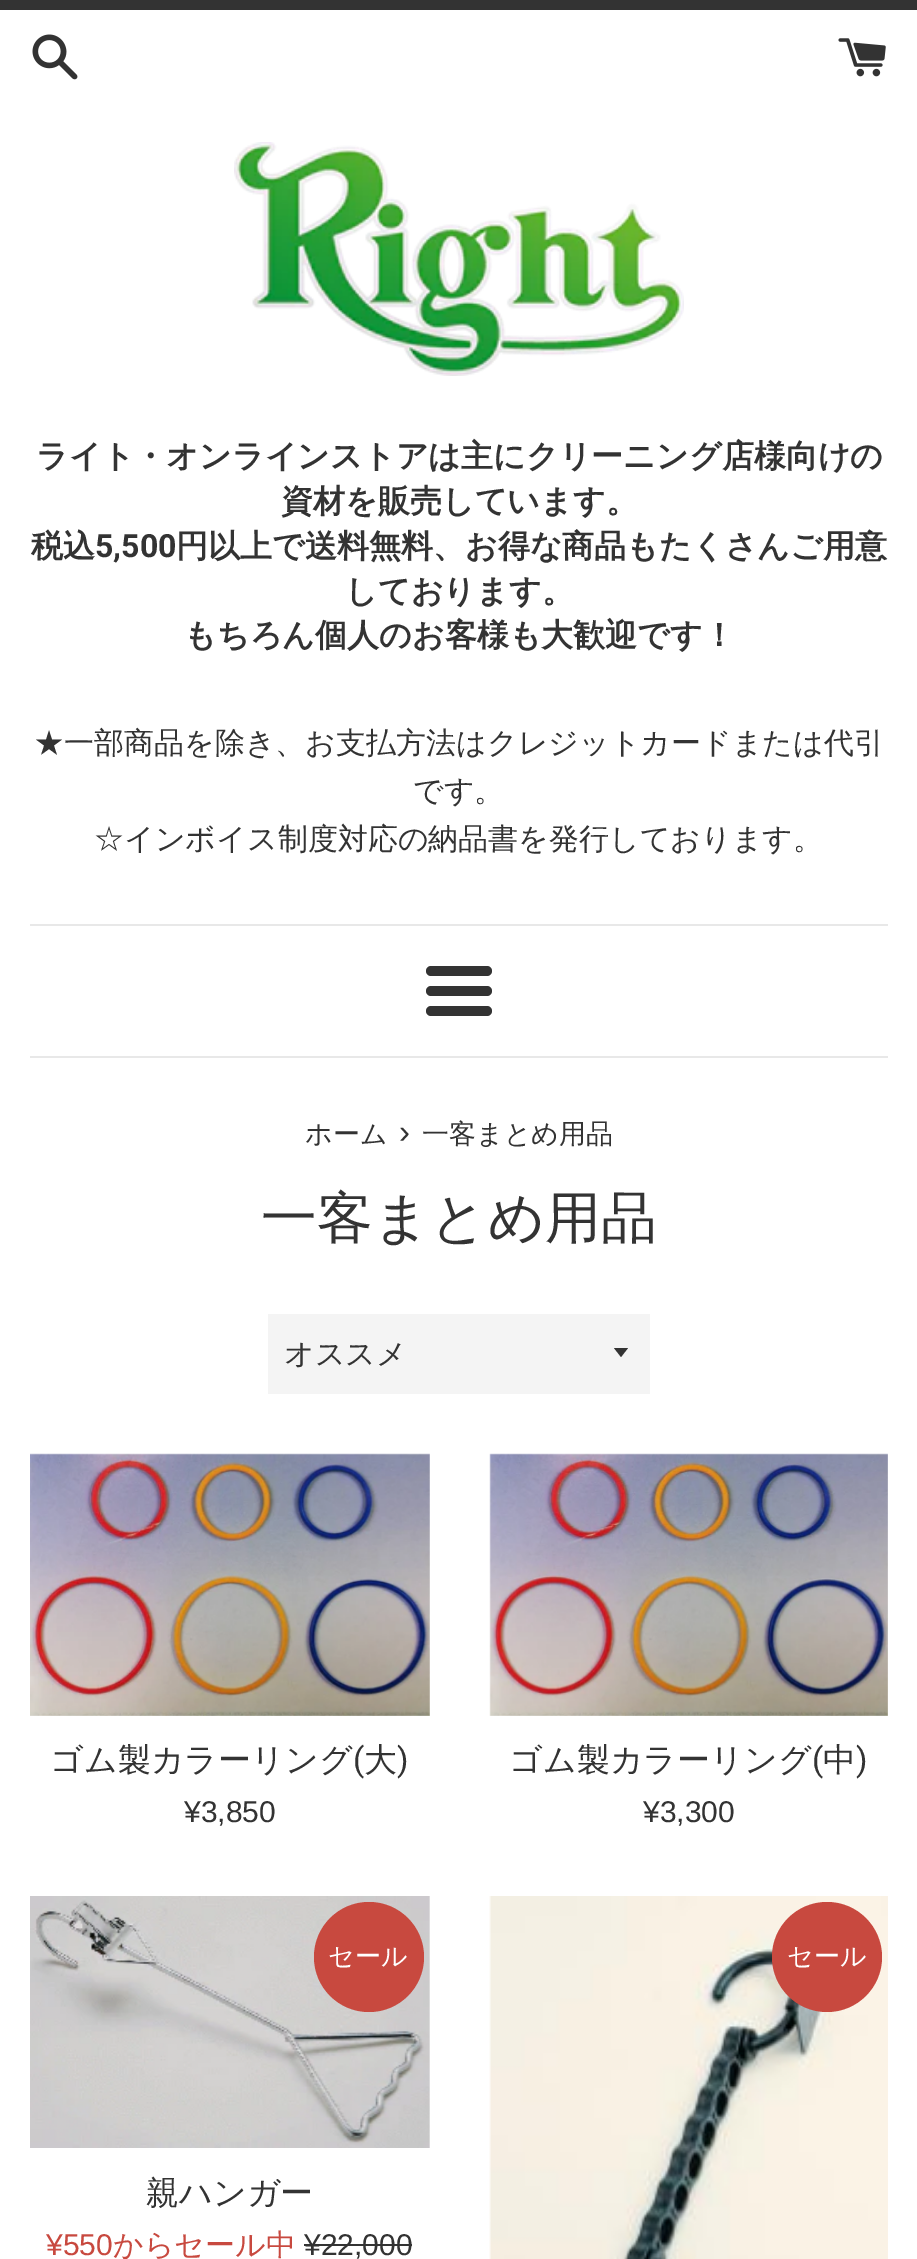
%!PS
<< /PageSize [917 2259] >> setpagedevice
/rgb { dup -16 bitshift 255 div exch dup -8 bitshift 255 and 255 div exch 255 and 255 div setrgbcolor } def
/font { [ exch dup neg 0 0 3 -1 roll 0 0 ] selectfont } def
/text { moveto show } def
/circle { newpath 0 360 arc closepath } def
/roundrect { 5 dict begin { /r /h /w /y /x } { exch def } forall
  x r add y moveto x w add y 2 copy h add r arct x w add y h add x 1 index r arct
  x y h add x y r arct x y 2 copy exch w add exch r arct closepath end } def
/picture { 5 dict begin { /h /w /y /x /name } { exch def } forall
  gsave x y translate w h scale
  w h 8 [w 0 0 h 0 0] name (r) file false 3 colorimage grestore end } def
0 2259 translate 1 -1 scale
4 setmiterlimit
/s1 { /WenQuanYiZenHei-Bold 32 font 16#333333 rgb } def
/s2 { /Roboto-Bold 32 font 16#333333 rgb } def
/s3 { /WenQuanYiZenHei-Medium 30 font 16#333333 rgb } def
/s4 { /WenQuanYiZenHei-Medium 27 font 16#333333 rgb } def
/s5 { /LiberationSans-Regular 33 font 16#333333 rgb } def
/s6 { /WenQuanYiZenHei-Medium 56 font 16#333333 rgb } def
/s7 { /WenQuanYiZenHei-Medium 33 font 16#333333 rgb } def
/s8 { /Roboto-Regular 33 font 16#333333 rgb } def
/s9 { /LiberationSans-Regular 30 font 16#333333 rgb } def
/s10 { /WenQuanYiZenHei-Medium 26 font 16#FFFFFF rgb } def
/s11 { /LiberationSans-Regular 30 font 16#C8493F rgb } def
/s12 { /WenQuanYiZenHei-Medium 30 font 16#C8493F rgb } def
16#FFFFFF rgb
0 0 917 2259 rectfill
16#333333 rgb
0 0 917 10 rectfill
(pic1.raw) 32 34 46 46 picture
(pic2.raw) 838 38 48 39 picture
(pic3.raw) 234 142 450 234 picture
s1
(ライト・オンラインストアは主にクリーニング店様向けの) 36 467 text
(資材を販売しています。) 281 512 text
(税込) 31 557 text
s2
(5,500) 95 557 text
s1
(円以上で送料無料、お得な商品もたくさんご用意) 176 557 text
(しております。) 345 602 text
(もちろん個人のお客様も大歓迎です！) 184 646 text
s3
(★一部商品を除き、お支払方法はクレジットカードまたは代引) 34 753 text
(です。) 413 801 text
(☆インボイス制度対応の納品書を発行しております。) 94 849 text
16#E8E8E8 rgb
30 924 858 2 rectfill
16#333333 rgb
426 966 66 10 5 roundrect fill
426 986 66 10 5 roundrect fill
426 1006 66 10 5 roundrect fill
16#E8E8E8 rgb
30 1056 858 2 rectfill
s4
(ホーム) 305 1143 text
s5
(›) 399 1143 text
s4
(一客まとめ用品) 422 1143 text
s6
(一客まとめ用品) 261 1237 text
16#F4F4F4 rgb
268 1314 382 80 rectfill
16#333333 rgb
614 1348 moveto 621 1357 lineto 628 1348 lineto closepath fill
s3
(オススメ) 284 1364 text
(pic4.raw) 30 1453 400 263 picture
s7
(ゴム製カラーリング) 50 1771 text
s8
(\() 353 1771 text
s7
(大) 364 1771 text
s8
(\)) 397 1771 text
s9
(¥3,850) 184 1822 text
(pic5.raw) 489 1453 399 263 picture
s7
(ゴム製カラーリング) 509 1771 text
s8
(\() 812 1771 text
s7
(中) 823 1771 text
s8
(\)) 856 1771 text
s9
(¥3,300) 643 1822 text
(pic6.raw) 30 1896 400 252 picture
16#C8493F rgb
369 1957 55 circle fill
s10
(セール) 328 1965 text
s11
(¥550) 46 2255 text
s12
(からセール中) 113 2255 text
s9
(¥22,000) 304 2255 text
304 2244 108 2 rectfill
s7
(親ハンガー) 146 2204 text
(pic7.raw) 489 1896 399 363 picture
16#C8493F rgb
827 1957 55 circle fill
s10
(セール) 787 1965 text
showpage
